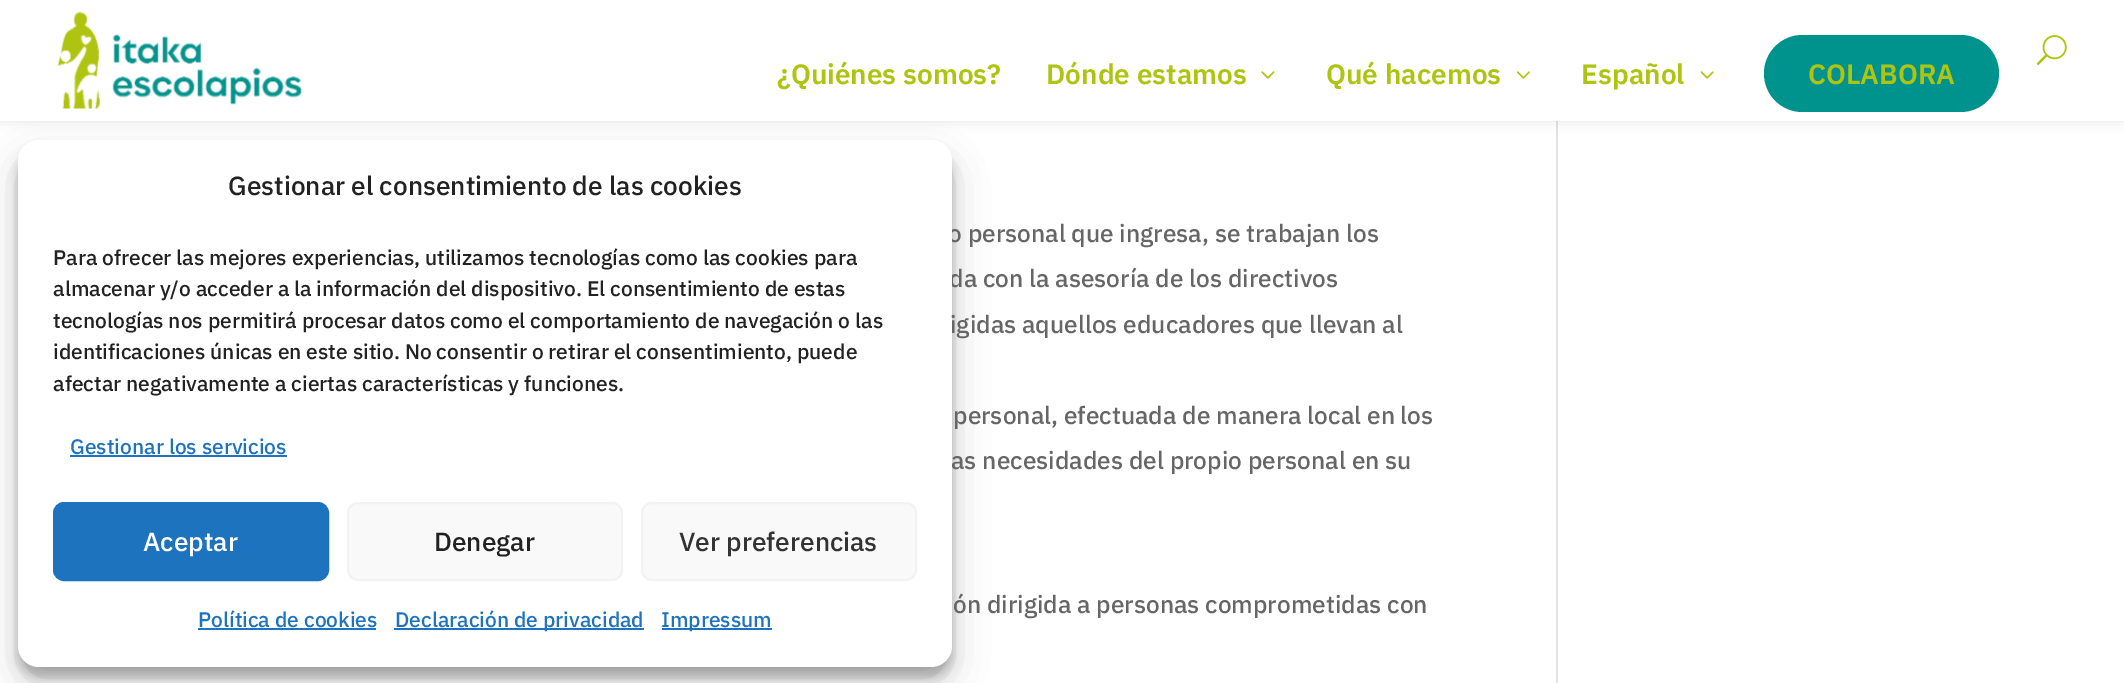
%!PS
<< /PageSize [2124 683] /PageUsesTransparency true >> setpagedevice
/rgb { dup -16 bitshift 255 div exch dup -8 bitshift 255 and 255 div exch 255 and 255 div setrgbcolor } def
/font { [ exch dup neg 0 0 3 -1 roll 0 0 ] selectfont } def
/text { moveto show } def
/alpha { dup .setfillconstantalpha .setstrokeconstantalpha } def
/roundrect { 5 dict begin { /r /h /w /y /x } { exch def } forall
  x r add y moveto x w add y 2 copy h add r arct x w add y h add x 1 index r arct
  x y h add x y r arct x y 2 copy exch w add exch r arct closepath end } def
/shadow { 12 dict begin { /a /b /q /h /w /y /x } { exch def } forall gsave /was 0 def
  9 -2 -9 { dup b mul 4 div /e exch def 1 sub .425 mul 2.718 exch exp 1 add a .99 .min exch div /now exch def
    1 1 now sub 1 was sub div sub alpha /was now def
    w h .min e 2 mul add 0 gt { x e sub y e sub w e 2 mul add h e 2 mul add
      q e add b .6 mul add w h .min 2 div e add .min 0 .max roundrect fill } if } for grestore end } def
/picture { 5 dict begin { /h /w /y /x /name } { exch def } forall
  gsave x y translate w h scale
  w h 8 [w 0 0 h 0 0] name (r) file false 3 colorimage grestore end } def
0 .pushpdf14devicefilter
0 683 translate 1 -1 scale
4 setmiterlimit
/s1 { /IBMPlexSans-Medium 24.5 font 16#666666 rgb } def
/s2 { /IBMPlexSans-Medium 26.25 font 16#222222 rgb } def
/s3 { /IBMPlexSans-Medium 21 font 16#222222 rgb } def
/s4 { /IBMPlexSans-Medium 21 font 16#1E73BE rgb } def
/s5 { /IBMPlexSans-Medium 26.25 font 16#FFFFFF rgb } def
/s6 { /IBMPlexSans-Medium 26.25 font 16#333333 rgb } def
/s7 { /IBMPlexSans-SemiBold 28 font 16#AFC410 rgb } def
16#FFFFFF rgb
0 0 2124 683 rectfill
16#000000 rgb
18 151 934 526 21 5 0.23 shadow
18 158 934 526 21 17.5 0.19 shadow
s1
(o personal que ingresa, se trabajan los) 948 242 text
(da con la asesoría de los directivos) 949 287 text
(as necesidades del propio personal en su) 951 469 text
16#FFFFFF rgb
18 140 934 527 21 roundrect fill
s2
(Gestionar el consentimiento de las cookies) 228 195 text
s3
(Para ofrecer las mejores experiencias, utilizamos tecnologías como las cookies para) 53 265 text
(almacenar y/o acceder a la información del dispositivo. El consentimiento de estas) 53 296 text
(tecnologías nos permitirá procesar datos como el comportamiento de navegación o las) 53 328 text
(identificaciones únicas en este sitio. No consentir o retirar el consentimiento, puede) 53 359 text
(afectar negativamente a ciertas características y funciones.) 53 391 text
s4
(Gestionar los servicios) 70 454 text
70 455 217 2 rectfill
54 503 274 77 10 roundrect gsave fill grestore
2 setlinewidth
stroke
s5
(Aceptar) 143 551 text
16#F9F9F9 rgb
348 503 274 77 10 roundrect gsave fill grestore
16#F2F2F2 rgb
stroke
s2
(Denegar) 434 551 text
16#F9F9F9 rgb
642 503 274 77 10 roundrect gsave fill grestore
16#F2F2F2 rgb
stroke
s6
(Ver preferencias) 679 551 text
s4
(Política de cookies) 198 627 text
198 628 178 2 rectfill
394 628 250 2 rectfill
(Declaración de privacidad) 395 627 text
662 628 110 2 rectfill
(Impressum) 661 627 text
16#E2E2E2 rgb
1556 121 2 562 rectfill
16#000000 rgb
0 0 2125 121 0 6 0.1 shadow
16#FFFFFF rgb
0 0 2124 121 rectfill
(pic1.raw) 57 11 245 98 picture
(pic2.raw) 2036 35 31 30 picture
s7
(¿Quiénes somos?) 777 84 text
(Dónde estamos) 1046 84 text
(pic3.raw) 1261 71 14 8 picture
(Qué hacemos) 1326 84 text
(pic4.raw) 1516 71 14 8 picture
(Español) 1581 84 text
(pic5.raw) 1700 71 14 8 picture
16#00928C rgb
1764 35 235 77 38.5 roundrect fill
s7
(COLABORA) 1808 84 text
s1
(igidas aquellos educadores que llevan al) 950 333 text
(personal, efectuada de manera local en los) 953 424 text
(ón dirigida a personas comprometidas con) 953 613 text
.poppdf14devicefilter showpage
